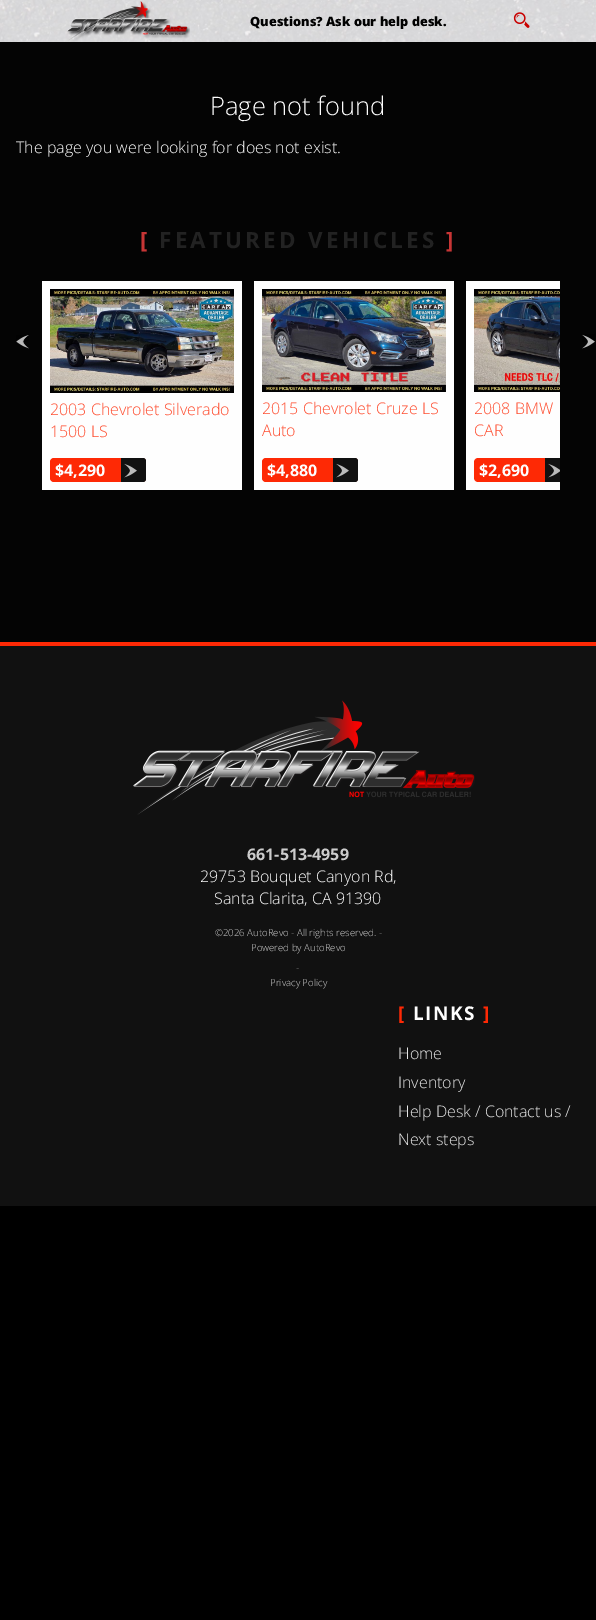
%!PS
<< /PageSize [596 1620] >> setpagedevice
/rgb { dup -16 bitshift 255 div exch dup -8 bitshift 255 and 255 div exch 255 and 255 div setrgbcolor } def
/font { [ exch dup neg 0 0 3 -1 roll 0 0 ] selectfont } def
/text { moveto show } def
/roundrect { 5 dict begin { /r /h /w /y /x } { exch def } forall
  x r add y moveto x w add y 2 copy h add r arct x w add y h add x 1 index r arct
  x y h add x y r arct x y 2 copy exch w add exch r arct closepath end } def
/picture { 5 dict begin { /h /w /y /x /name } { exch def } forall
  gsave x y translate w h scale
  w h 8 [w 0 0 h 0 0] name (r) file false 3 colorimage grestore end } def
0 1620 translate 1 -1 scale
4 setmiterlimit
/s1 { /OpenSans-ExtraBold 12.75 font 16#010101 rgb } def
/s2 { /OpenSans-Light 25.5 font 16#FEFEFE rgb } def
/s3 { /OpenSans-Light 16 font 16#FEFEFE rgb } def
/s4 { /OpenSans-Light 16 font 16#FE4C2E rgb } def
/s5 { /OpenSans-Bold 16 font 16#FEFEFE rgb } def
/s6 { /OpenSans-Bold 16 font 16#CCCCCC rgb } def
/s7 { /OpenSans-Light 9.6 font 16#CCCCCC rgb } def
/s8 { /OpenSans-Light 16 font 16#E6E6E6 rgb } def
16#000000 rgb
0 0 596 1620 rectfill
(pic1.raw) 0 0 596 42 picture
(pic2.raw) 67 1 123 41 picture
s1
(Questions? Ask our help desk.) 250 26 text
(pic3.raw) 513 12 17 16 picture
16#040404 rgb
0 42 596 600 rectfill
s2
(Page not found) 210 115 text
s3
(The page you were looking for does not exist.) 16 153 text
/OpenSans-Bold 22.4 font
16#C73535 rgb
140 248 moveto 3.25 0 ([) ashow
16#222222 rgb
159 248 moveto 3.25 0 (FEATURED VEHICLES) ashow
16#C73535 rgb
446 248 moveto 3.25 0 (]) ashow
(pic4.raw) 16 335 13 14 picture
(pic5.raw) 582 334 13 15 picture
16#FEFEFE rgb
42 281 200 209 rectfill
(pic6.raw) 50 289 184 104 picture
s4
(2003 Chevrolet Silverado) 50 415 text
(1500 LS) 50 437 text
16#FE2905 rgb
50 458 96 24 4 roundrect fill
s5
($4,290) 55 476 text
16#111111 rgb
121 458 moveto 143 458 lineto 144.5 458 146 459.5 146 461 curveto 146 479 lineto 146 480.5 144.5 482 143 482 curveto 121 482 lineto closepath fill
(pic7.raw) 124 463 13 15 picture
16#FEFEFE rgb
254 281 200 209 rectfill
(pic8.raw) 262 289 184 103 picture
s4
(2015 Chevrolet Cruze LS) 262 414 text
(Auto) 262 436 text
16#FE2905 rgb
262 458 96 24 4 roundrect fill
s5
($4,880) 267 476 text
16#111111 rgb
333 458 moveto 355 458 lineto 356.5 458 358 459.5 358 461 curveto 358 479 lineto 358 480.5 356.5 482 355 482 curveto 333 482 lineto closepath fill
(pic7.raw) 336 463 13 15 picture
16#FEFEFE rgb
466 281 94 209 rectfill
(pic9.raw) 474 289 86 103 picture
s4
(2008 BMW) 474 414 text
(CAR) 474 436 text
16#FE2905 rgb
478 458 moveto 560 458 lineto 560 482 lineto 478 482 lineto 476 482 474 480 474 478 curveto 474 462 lineto 474 460 476 458 478 458 curveto closepath fill
s5
($2,690) 479 476 text
16#111111 rgb
545 458 15 24 rectfill
(pic10.raw) 548 463 12 15 picture
0 646 596 560 rectfill
16#FE2905 rgb
0 642 596 4 rectfill
(pic11.raw) 133 700 342 115 picture
s6
(661-513-4959) 247 860 text
s3
(29753 Bouquet Canyon Rd,) 200 882 text
(Santa Clarita, CA 91390) 214 904 text
s7
(©2026 AutoRevo - All rights reserved. -) 215 936 text
(Powered by AutoRevo) 251 951 text
(-) 296 971 text
(Privacy Policy) 270 986 text
/OpenSans-Bold 19 font
16#FE2905 rgb
398 1020 moveto 1.5 0 ([) ashow
16#FEFEFE rgb
413 1020 moveto 1.5 0 (LINKS) ashow
16#FE2905 rgb
483 1020 moveto 1.5 0 (]) ashow
s8
(Home) 398 1059 text
(Inventory) 398 1088 text
(Help Desk / Contact us /) 398 1117 text
(Next steps) 398 1145 text
showpage
